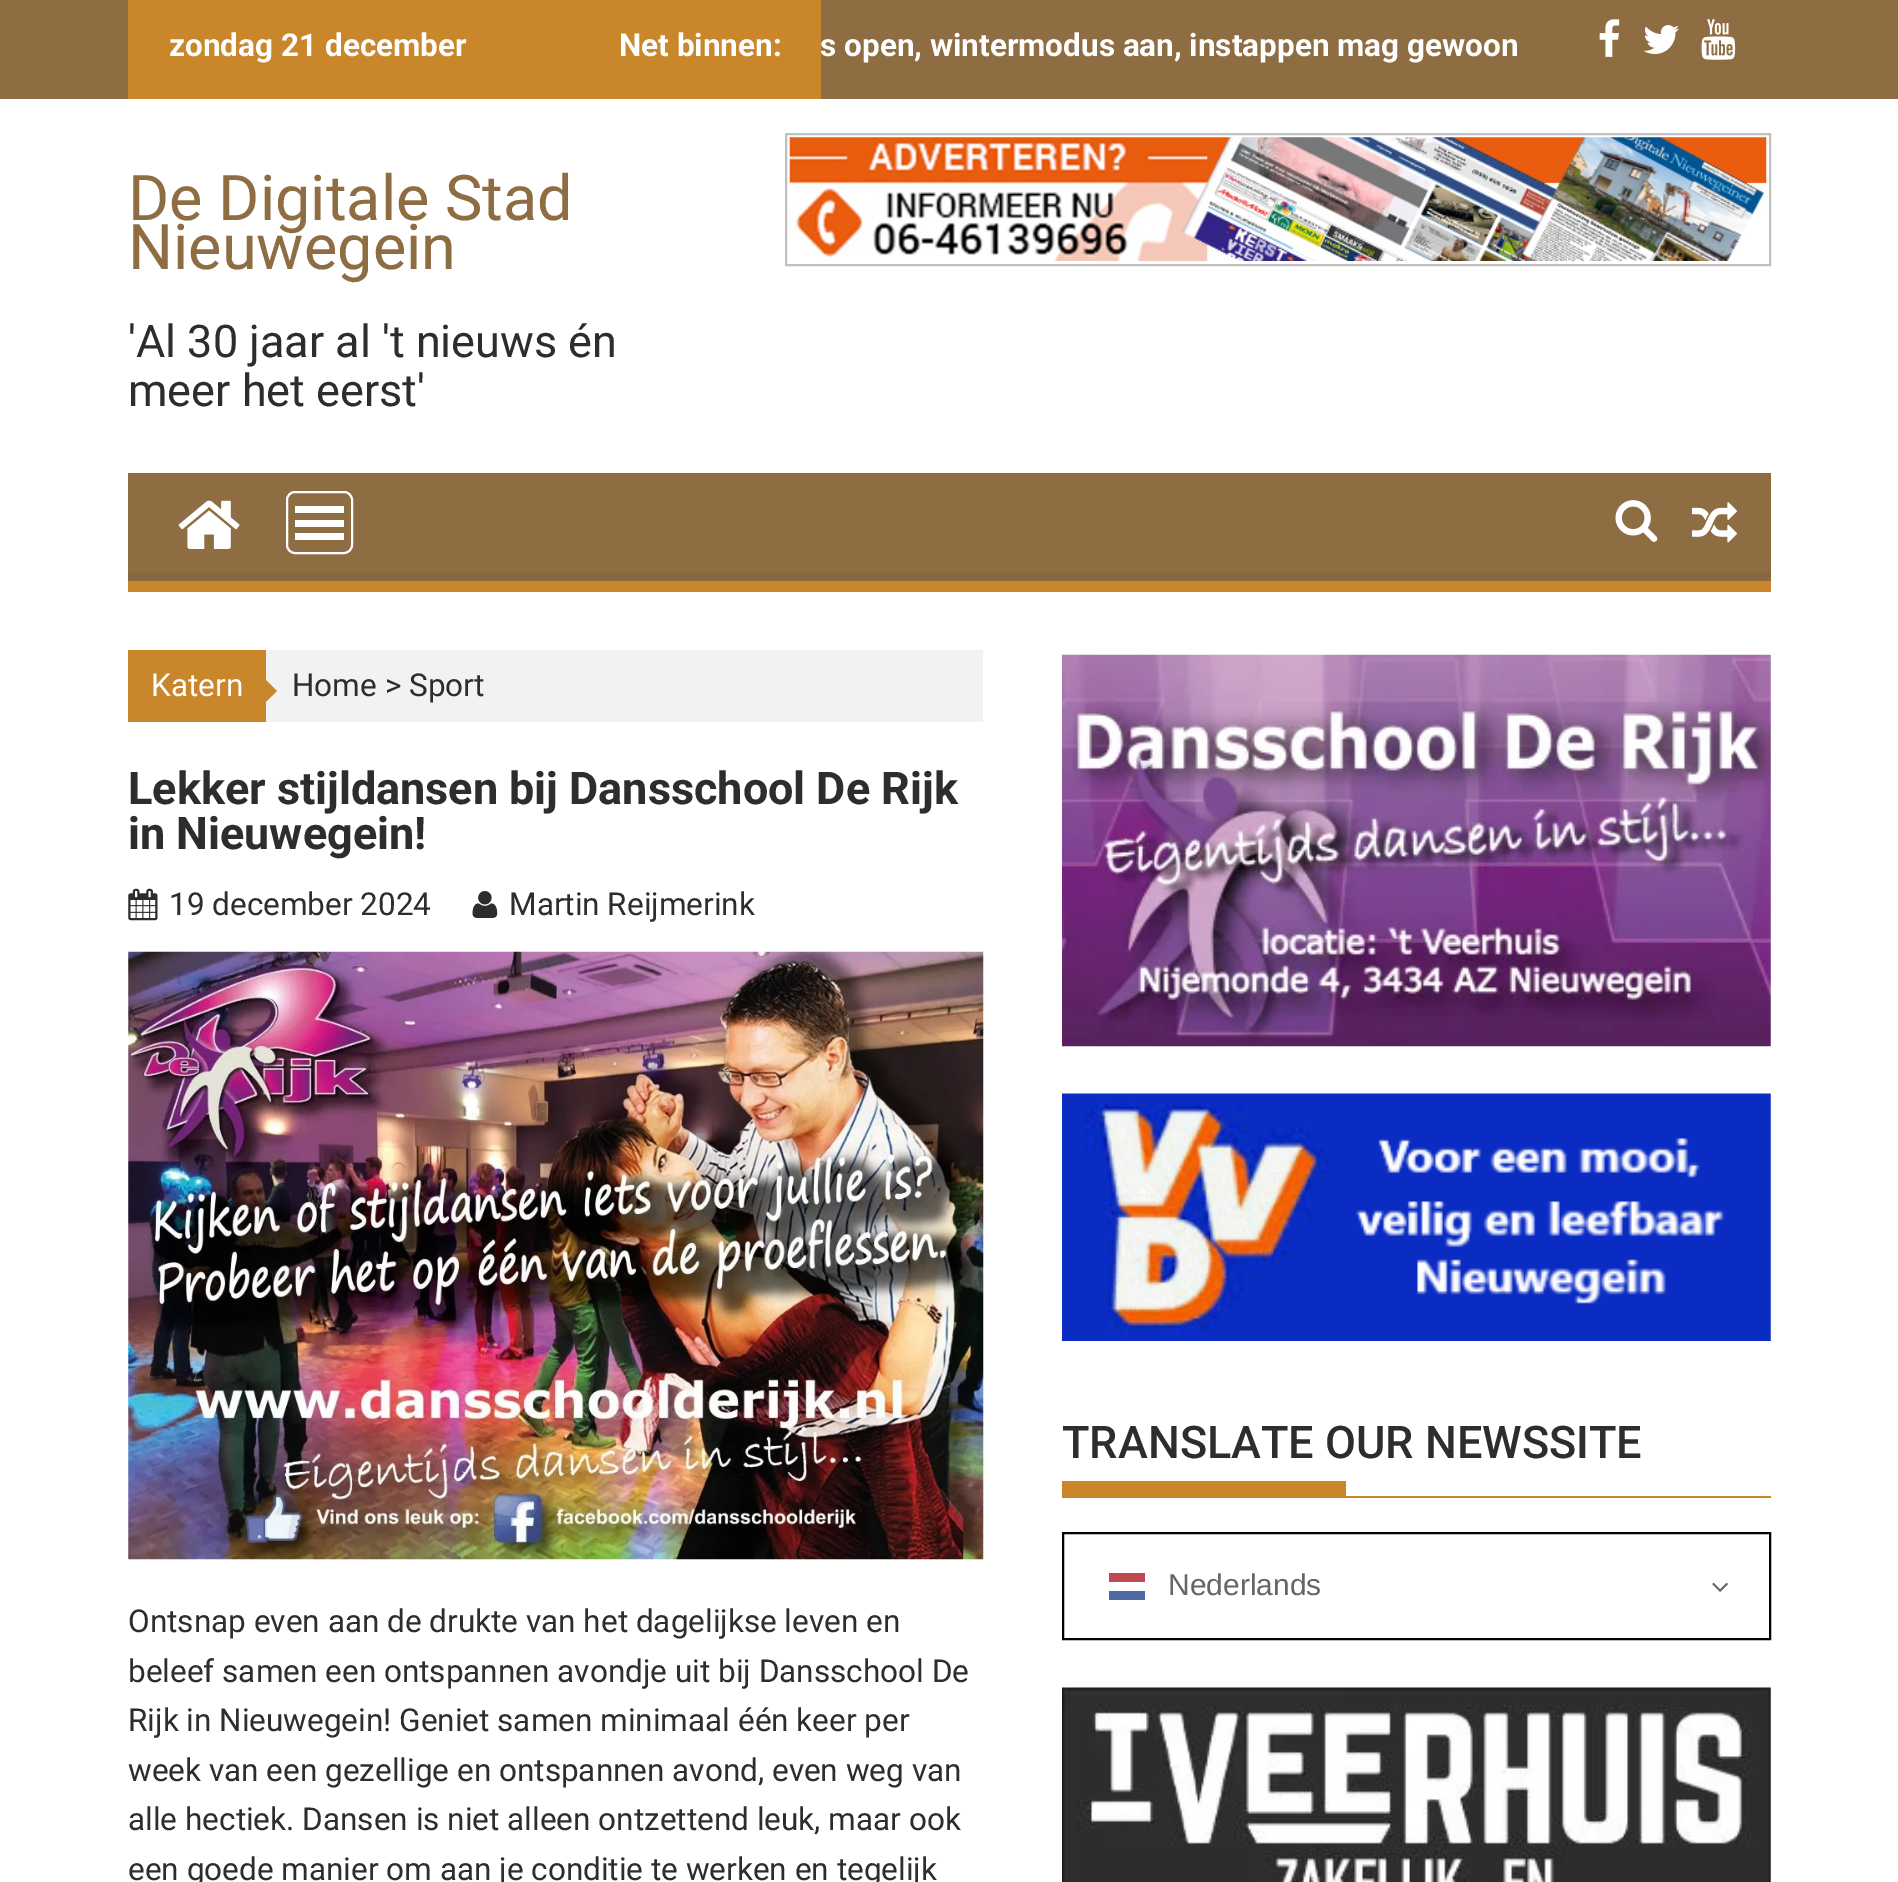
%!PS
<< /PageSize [1898 1882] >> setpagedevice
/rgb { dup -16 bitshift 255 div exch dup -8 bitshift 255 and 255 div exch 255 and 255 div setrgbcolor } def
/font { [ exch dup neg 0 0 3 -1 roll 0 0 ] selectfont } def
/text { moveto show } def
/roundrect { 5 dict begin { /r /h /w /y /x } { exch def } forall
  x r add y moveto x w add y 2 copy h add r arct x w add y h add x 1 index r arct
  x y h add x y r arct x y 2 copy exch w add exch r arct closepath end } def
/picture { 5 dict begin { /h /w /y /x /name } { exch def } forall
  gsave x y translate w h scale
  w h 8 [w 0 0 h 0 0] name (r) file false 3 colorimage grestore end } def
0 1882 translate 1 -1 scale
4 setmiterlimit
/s1 { /Roboto-Bold 31.5 font 16#FFFFFF rgb } def
/s2 { /Roboto-Regular 63 font 16#8F6D42 rgb } def
/s3 { /Roboto-Regular 45 font 16#2D2D2D rgb } def
/s4 { /Roboto-Regular 31.5 font 16#FFFFFF rgb } def
/s5 { /Roboto-Regular 31.5 font 16#2D2D2D rgb } def
/s6 { /Roboto-Bold 45 font 16#2D2D2D rgb } def
/s7 { /Roboto-Medium 45 font 16#2D2D2D rgb } def
/s8 { /LiberationSans-Regular 30 font 16#666666 rgb } def
16#FFFFFF rgb
0 0 1898 1882 rectfill
16#8F6D42 rgb
0 0 1898 99 rectfill
16#C9862A rgb
128 0 450 99 rectfill
s1
(zondag 21 december) 169 56 text
(s open, wintermodus aan, instappen mag gewoon) 820 56 text
16#C9862A rgb
578 0 243 99 rectfill
s1
(Net binnen:) 619 56 text
(pic1.raw) 1599 19 21 38 picture
(pic2.raw) 1643 25 36 29 picture
(pic3.raw) 1701 19 35 41 picture
s2
(De Digitale Stad) 128 220 text
(Nieuwegein) 128 269 text
s3
('Al 30 jaar al 't nieuws én) 128 357 text
(meer het eerst') 128 406 text
16#C0C0C0 rgb
2 setlinewidth
786 134 984 131 rectstroke
(pic4.raw) 789 137 978 124 picture
16#8F6D42 rgb
128 473 1643 99 rectfill
gsave
128 473 1643 108 rectclip
16#88683F rgb
-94 250 moveto 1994 250 lineto 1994 803 lineto -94 803 lineto closepath 126 459 moveto 1768 459 lineto 1770 459 1771 460 1771 461 curveto 1771 569 lineto 1771 570 1770 572 1768 572 curveto 126 572 lineto 125 572 124 570 124 569 curveto 124 461 lineto 124 460 125 459 126 459 curveto closepath eofill
grestore
16#C9862A rgb
128 581 1643 11 rectfill
16#FFFFFF rgb
287 492 65 61 8 roundrect stroke
295 533 49 7 rectfill
295 520 49 7 rectfill
295 506 49 7 rectfill
(pic5.raw) 178 500 62 49 picture
(pic6.raw) 1615 500 43 42 picture
(pic7.raw) 1692 502 45 41 picture
16#F2F2F2 rgb
266 650 717 72 rectfill
16#C9862A rgb
128 650 138 72 rectfill
s4
(Katern) 151 696 text
16#C9862A rgb
265.5 702 moveto 265.5 679.5 lineto 277 691 lineto closepath fill
s5
(Home > Sport) 292 696 text
s6
(Lekker stijldansen bij Dansschool De Rijk) 128 804 text
(in Nieuwegein!) 128 849 text
(pic8.raw) 128 888 30 33 picture
s5
(19 december 2024) 169 915 text
(pic9.raw) 472 891 26 27 picture
(Martin Reijmerink) 509 915 text
(pic10.raw) 128 951 856 609 picture
(Ontsnap even aan de drukte van het dagelijkse leven en) 128 1632 text
(beleef samen een ontspannen avondje uit bij Dansschool De) 128 1682 text
(Rijk in Nieuwegein! Geniet samen minimaal één keer per) 128 1731 text
(week van een gezellige en ontspannen avond, even weg van) 128 1781 text
(alle hectiek. Dansen is niet alleen ontzettend leuk, maar ook) 128 1830 text
(een goede manier om aan je conditie te werken en tegelijk) 128 1880 text
(pic11.raw) 1062 654 709 393 picture
(pic12.raw) 1062 1093 709 248 picture
16#C9862A rgb
1062 1496 709 2 rectfill
s7
(TRANSLATE OUR NEWSSITE) 1062 1458 text
16#C9862A rgb
1062 1481 284 15 rectfill
16#020202 rgb
1063 1533 707 106 rectstroke
16#4D6BA2 rgb
1109 1591 36 9 rectfill
16#BE4953 rgb
1109 1573 36 9 rectfill
s8
(Nederlands) 1168 1595 text
(pic13.raw) 1712 1582 16 10 picture
(pic14.raw) 1062 1687 709 195 picture
showpage
